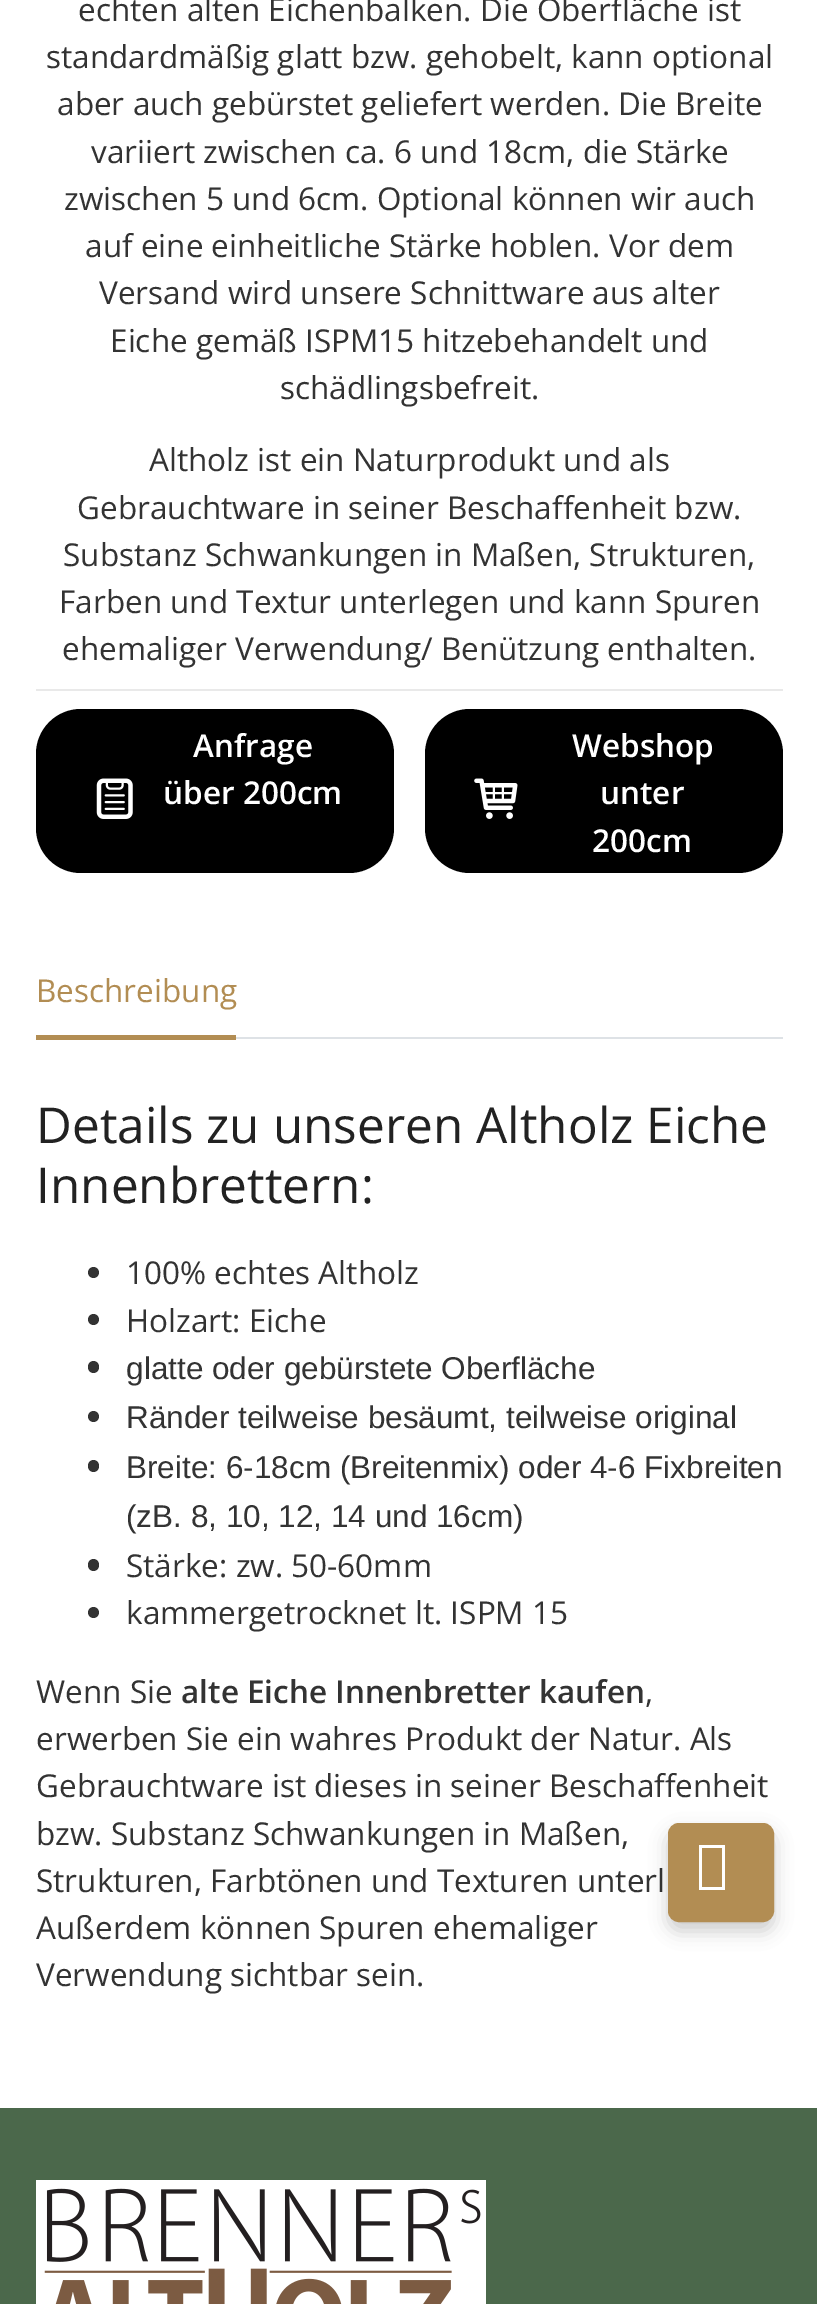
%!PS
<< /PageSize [817 2304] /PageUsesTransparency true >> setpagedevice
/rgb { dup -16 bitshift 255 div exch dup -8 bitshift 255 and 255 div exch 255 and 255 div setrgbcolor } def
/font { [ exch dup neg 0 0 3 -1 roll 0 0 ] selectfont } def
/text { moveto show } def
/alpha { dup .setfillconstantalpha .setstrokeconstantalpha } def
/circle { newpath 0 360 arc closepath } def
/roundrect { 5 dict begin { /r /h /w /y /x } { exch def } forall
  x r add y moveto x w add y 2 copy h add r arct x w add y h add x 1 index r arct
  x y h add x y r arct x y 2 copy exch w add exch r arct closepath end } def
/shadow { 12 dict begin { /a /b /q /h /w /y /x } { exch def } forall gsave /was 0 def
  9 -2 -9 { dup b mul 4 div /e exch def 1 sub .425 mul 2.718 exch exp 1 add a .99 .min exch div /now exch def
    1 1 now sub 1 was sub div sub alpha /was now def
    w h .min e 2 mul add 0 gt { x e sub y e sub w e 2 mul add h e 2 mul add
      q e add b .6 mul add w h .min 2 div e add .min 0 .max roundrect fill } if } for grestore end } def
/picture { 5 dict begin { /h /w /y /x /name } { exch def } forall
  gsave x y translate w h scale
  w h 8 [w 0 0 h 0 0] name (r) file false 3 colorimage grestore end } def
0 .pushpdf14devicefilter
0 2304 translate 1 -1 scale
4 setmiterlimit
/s1 { /OpenSans-Regular 31.5 font 16#333333 rgb } def
/s2 { /OpenSans-SemiBold 31.5 font 16#FFFFFF rgb } def
/s3 { /OpenSans-Regular 31.5 font 16#B28D53 rgb } def
/s4 { /OpenSans-Regular 49.5 font 16#222222 rgb } def
/s5 { /LiberationSans-Regular 31.5 font 16#333333 rgb } def
/s6 { /OpenSans-SemiBold 31.5 font 16#333333 rgb } def
16#FFFFFF rgb
0 0 817 2304 rectfill
16#E9E9E9 rgb
36 689 747 2 rectfill
s1
(echten alten Eichenbalken. Die Oberfläche ist) 78 21 text
(standardmäßig glatt bzw. gehobelt, kann optional) 46 68 text
(aber auch gebürstet geliefert werden. Die Breite) 57 115 text
(variiert zwischen ca. 6 und 18cm, die Stärke) 91 163 text
(zwischen 5 und 6cm. Optional können wir auch) 64 210 text
(auf eine einheitliche Stärke hoblen. Vor dem) 85 257 text
(Versand wird unsere Schnittware aus alter) 99 304 text
(Eiche gemäß ISPM15 hitzebehandelt und) 110 352 text
(schädlingsbefreit.) 280 399 text
(Altholz ist ein Naturprodukt und als) 149 471 text
(Gebrauchtware in seiner Beschaffenheit bzw.) 77 519 text
(Substanz Schwankungen in Maßen, Strukturen,) 63 566 text
(Farben und Textur unterlegen und kann Spuren) 59 613 text
(ehemaliger Verwendung/ Benützung enthalten.) 62 660 text
16#000000 rgb
36 709 358 164 45 roundrect fill
s2
(Anfrage) 193 757 text
(pic1.raw) 96 778 37 41 picture
(über 200cm) 163 804 text
16#000000 rgb
425 709 358 164 45 roundrect fill
s2
(Webshop) 572 757 text
(pic2.raw) 474 778 44 41 picture
(unter) 600 804 text
(200cm) 592 852 text
16#DEE2E6 rgb
236 1037 547 2 rectfill
s3
(Beschreibung) 36 1002 text
36 1035 200 5 rectfill
s4
(Details zu unseren Altholz Eiche) 36 1143 text
(Innenbrettern:) 36 1203 text
16#333333 rgb
93.5 1272.5 5.5 circle fill
s1
(100% echtes Altholz) 126 1284 text
93.5 1319.5 5.5 circle fill
(Holzart: Eiche) 126 1332 text
88 1361 11 12 5.5 roundrect fill
s5
(glatte oder gebürstete Oberfläche) 126 1379 text
93.5 1416.5 5.5 circle fill
(Ränder teilweise besäumt, teilweise original) 126 1428 text
88 1460 11 12 5.5 roundrect fill
(Breite: 6-18cm \(Breitenmix\) oder 4-6 Fixbreiten) 126 1478 text
(\(zB. 8, 10, 12, 14 und 16cm\)) 126 1527 text
88 1559 11 12 5.5 roundrect fill
s1
(Stärke: zw. 50-60mm) 126 1577 text
93.5 1612.5 5.5 circle fill
(kammergetrocknet lt. ISPM 15) 126 1624 text
(Wenn Sie) 36 1703 text
s6
(alte Eiche Innenbretter kaufen) 181 1703 text
s1
(,) 645 1703 text
(erwerben Sie ein wahres Produkt der Natur. Als) 36 1750 text
(Gebrauchtware ist dieses in seiner Beschaffenheit) 36 1797 text
(bzw. Substanz Schwankungen in Maßen,) 36 1845 text
(Strukturen, Farbtönen und Texturen unterl) 36 1892 text
(Außerdem können Spuren ehemaliger) 36 1939 text
(Verwendung sichtbar sein.) 36 1986 text
16#4B684B rgb
0 2108 817 196 rectfill
16#000000 rgb
668 1832 106 99 11 9 0.2 shadow
16#B28D53 rgb
669 1824 104 97 10 roundrect gsave fill grestore
2 setlinewidth
stroke
16#FFFFFF rgb
699 1890 moveto 699 1845 lineto 725 1845 lineto 725 1890 lineto closepath 702 1887 moveto 722 1887 lineto 722 1848 lineto 702 1848 lineto closepath fill
(pic3.raw) 36 2180 450 124 picture
.poppdf14devicefilter showpage
